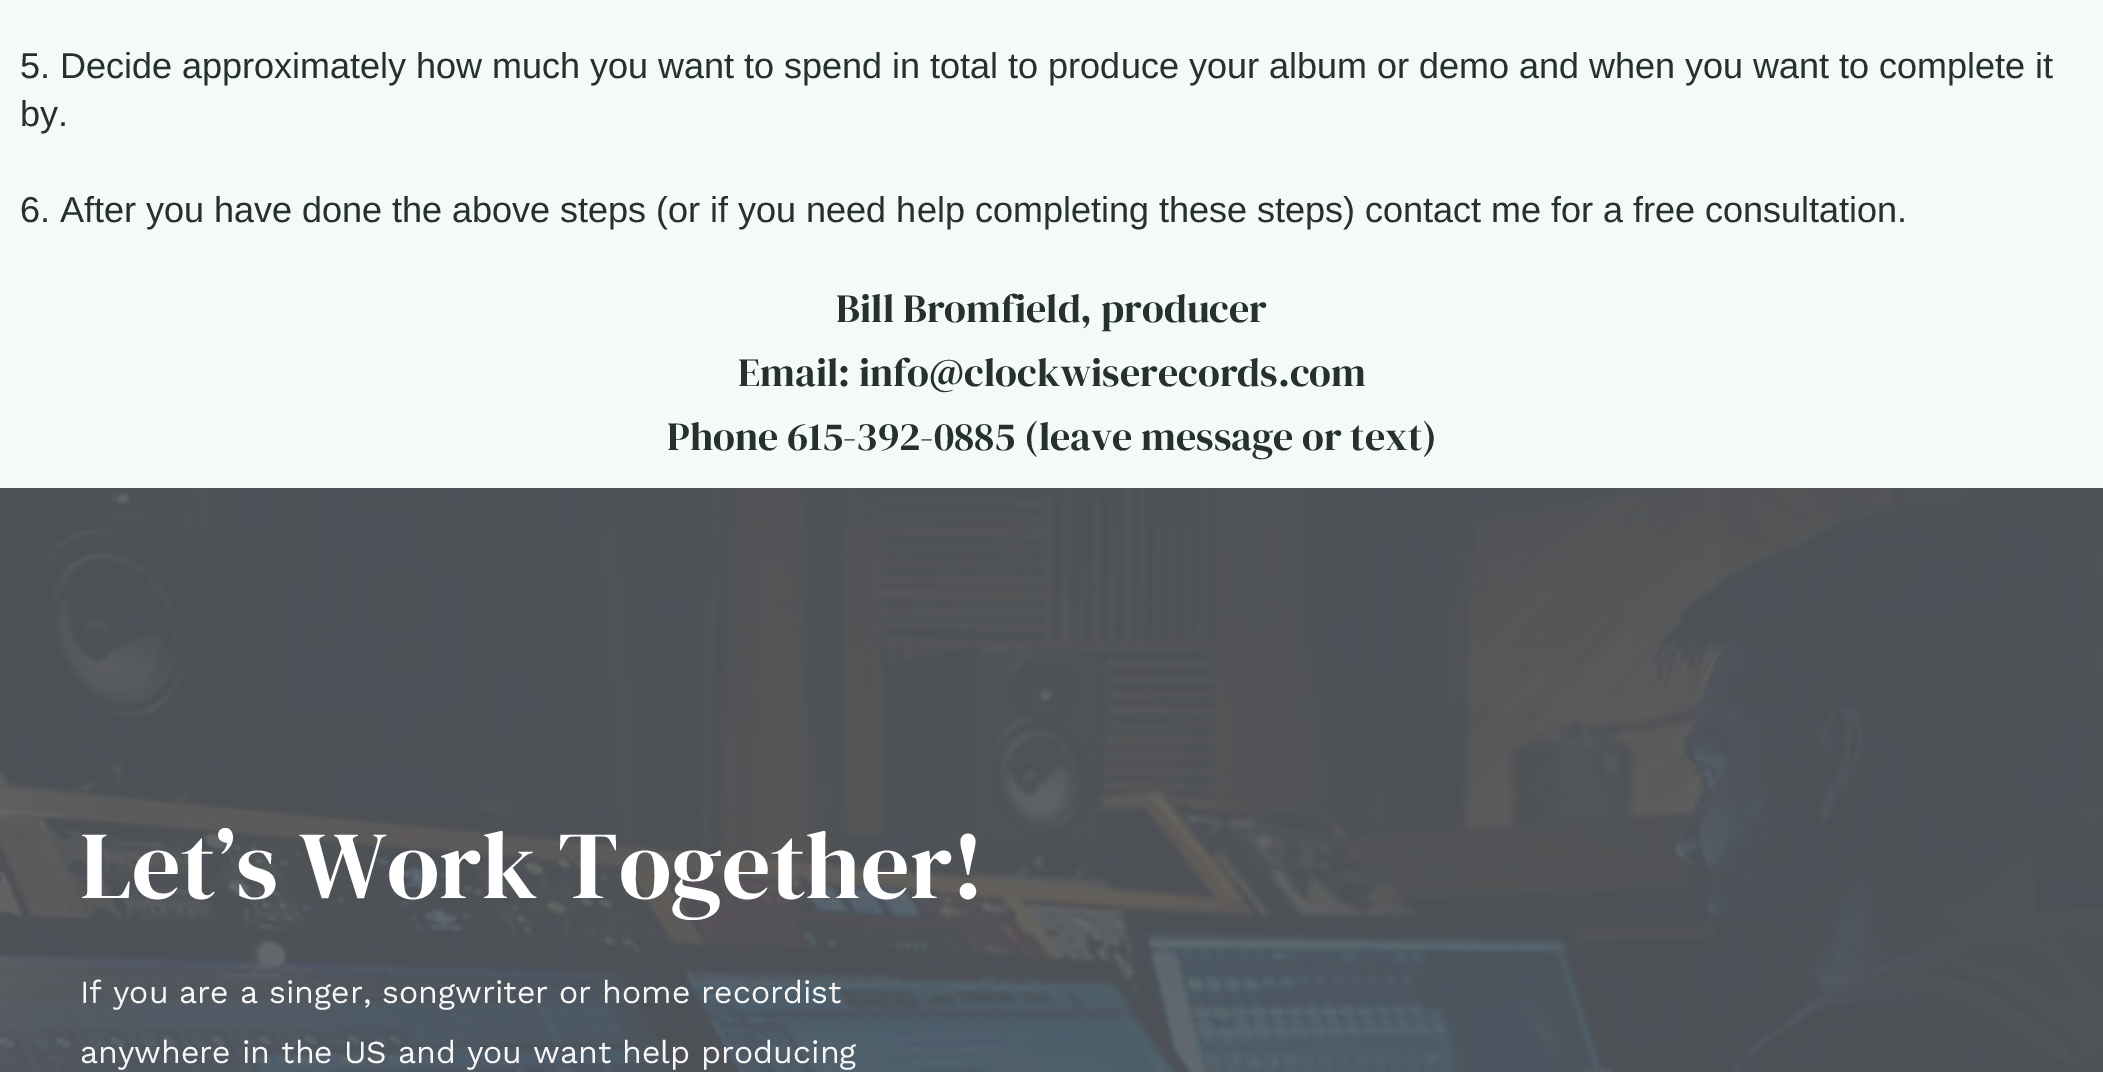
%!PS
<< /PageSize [2103 1072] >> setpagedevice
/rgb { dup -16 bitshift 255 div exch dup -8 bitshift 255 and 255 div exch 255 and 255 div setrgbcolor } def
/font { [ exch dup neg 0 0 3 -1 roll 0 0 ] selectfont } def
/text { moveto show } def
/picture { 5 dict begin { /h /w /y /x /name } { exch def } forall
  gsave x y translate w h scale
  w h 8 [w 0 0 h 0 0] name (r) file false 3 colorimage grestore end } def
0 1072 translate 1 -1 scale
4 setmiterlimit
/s1 { /LiberationSans-Regular 36 font 16#26312C rgb } def
/s2 { /DMSerifDisplay-Regular 40 font 16#26312C rgb } def
/s3 { /DMSerifDisplay-Regular 96 font 16#FFFFFF rgb } def
/s4 { /WorkSans-Regular 32 font 16#F7F7F7 rgb } def
16#F3FAF7 rgb
0 0 2103 1072 rectfill
s1
(5. Decide approximately how much you want to spend in total to produce your album or demo and when you want to complete it) 20 78 text
(by.) 20 126 text
(6. After you have done the above steps \(or if you need help completing these steps\) contact me for a free consultation.) 20 222 text
s2
(Bill Bromfield, producer) 836 322 text
(Email: info@clockwiserecords.com) 738 386 text
(Phone 615-392-0885 \(leave message or text\)) 667 450 text
(pic1.raw) 0 488 2103 584 picture
s3
(Let’s Work Together!) 80 898 text
s4
(If you are a singer, songwriter or home recordist) 80 1003 text
(anywhere in the US and you want help producing) 80 1063 text
showpage
